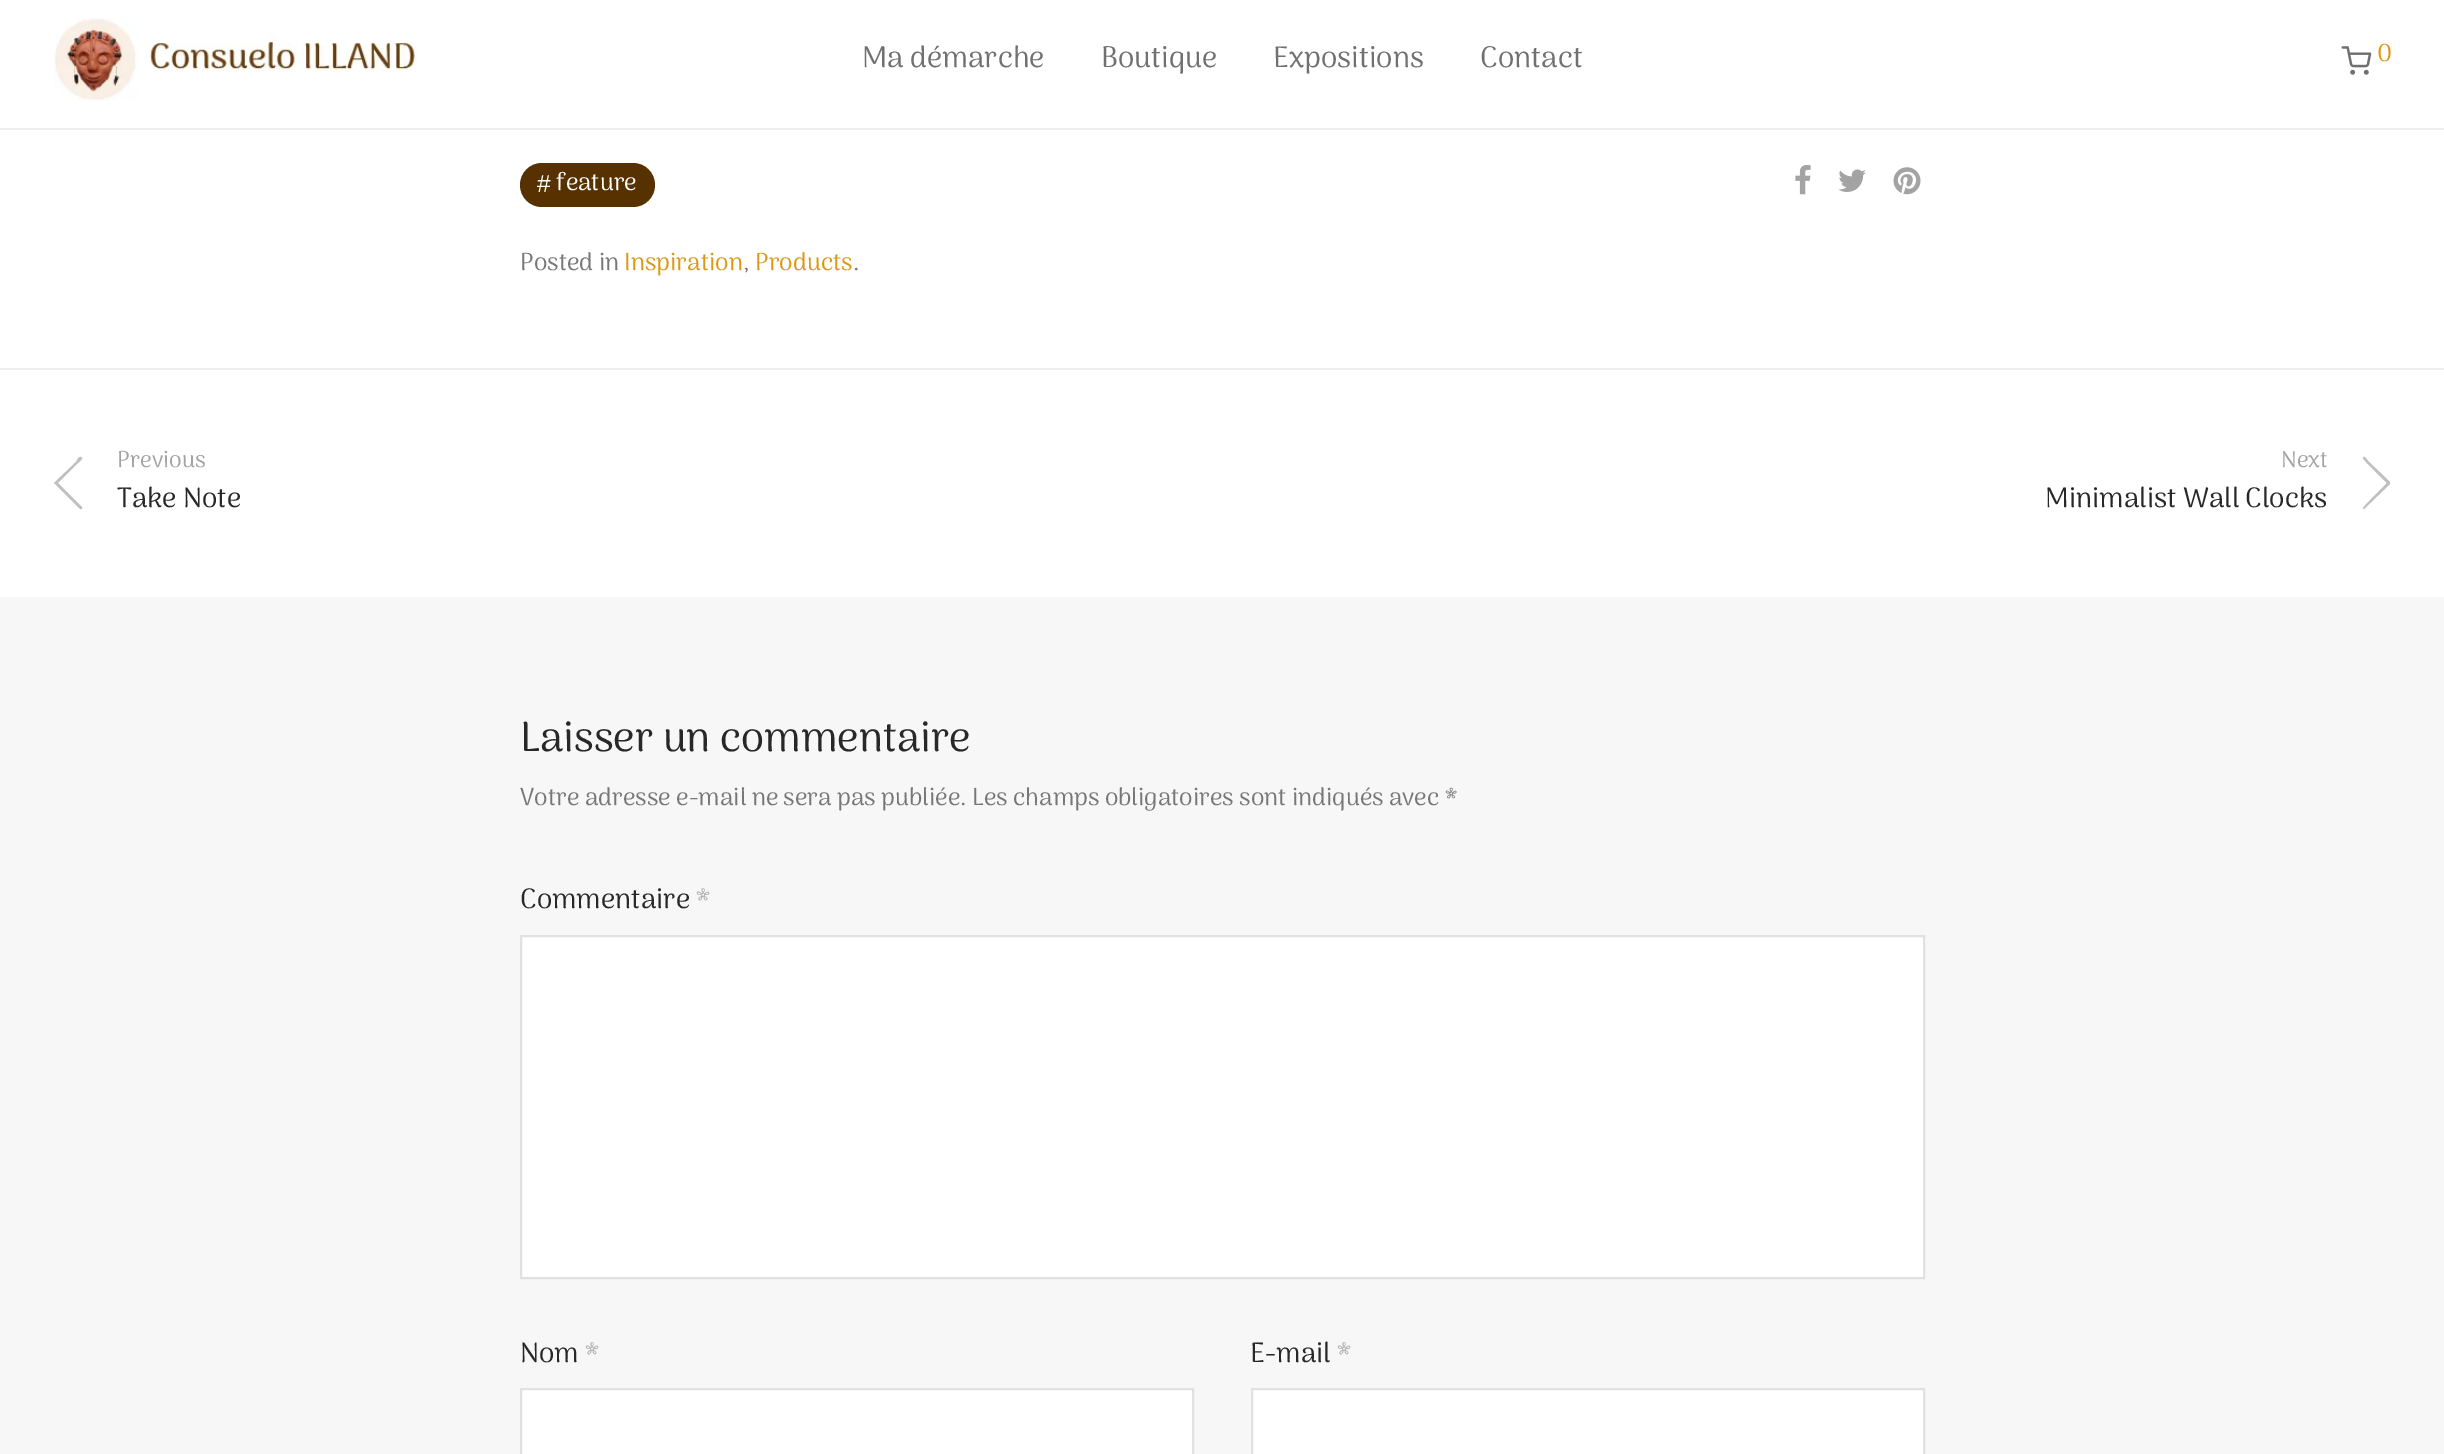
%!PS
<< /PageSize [2444 1454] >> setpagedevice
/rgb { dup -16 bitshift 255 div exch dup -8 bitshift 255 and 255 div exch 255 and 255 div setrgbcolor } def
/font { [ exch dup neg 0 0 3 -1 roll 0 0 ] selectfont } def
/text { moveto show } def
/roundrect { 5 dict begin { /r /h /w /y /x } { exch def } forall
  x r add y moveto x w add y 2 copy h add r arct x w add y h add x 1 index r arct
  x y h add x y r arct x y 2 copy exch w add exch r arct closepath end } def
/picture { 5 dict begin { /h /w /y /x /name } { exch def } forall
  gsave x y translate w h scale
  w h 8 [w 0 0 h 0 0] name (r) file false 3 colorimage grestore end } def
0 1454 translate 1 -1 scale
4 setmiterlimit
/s1 { /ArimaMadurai-Regular 29.75 font 16#707070 rgb } def
/s2 { /ArimaMadurai-Regular 24.5 font 16#DC9814 rgb } def
/s3 { /LiberationSans-Regular 24.5 font 16#FFFFFF rgb } def
/s4 { /ArimaMadurai-Regular 24.5 font 16#FFFFFF rgb } def
/s5 { /ArimaMadurai-Regular 24.5 font 16#777777 rgb } def
/s6 { /ArimaMadurai-Regular 23 font 16#A3A3A3 rgb } def
/s7 { /ArimaMadurai-Regular 28 font 16#282828 rgb } def
/s8 { /ArimaMadurai-Regular 42 font 16#282828 rgb } def
/s9 { /ArimaMadurai-Regular 28 font 16#AAAAAA rgb } def
16#FFFFFF rgb
0 0 2444 1454 rectfill
16#EEEEEE rgb
0 128 2444 2 rectfill
(pic1.raw) 54 18 364 83 picture
s1
(Ma démarche) 862 67 text
(Boutique) 1101 67 text
(Expositions) 1273 67 text
(Contact) 1480 67 text
(pic2.raw) 2341 46 31 29 picture
s2
(0) 2377 61 text
16#573100 rgb
520 163 135 44 22 roundrect fill
s3
(#) 537 192 text
s4
(feature) 556 190 text
s5
(Posted in) 520 270 text
s2
(Inspiration) 624 270 text
s5
(,) 743 270 text
s2
(Products) 755 270 text
s5
(.) 853 270 text
(pic3.raw) 1795 165 16 30 picture
(pic4.raw) 1838 169 28 23 picture
(pic5.raw) 1893 167 28 28 picture
16#EEEEEE rgb
0 368 2444 2 rectfill
16#BFBFBF rgb
55 482 moveto 76 462 lineto 77 460 79 456 81 457 curveto 84 458 80 461 78 463 curveto 58 483 lineto 82 507 lineto 83 508 81 510 80 509 curveto 55 484 lineto 54 484 54 483 55 482 curveto closepath fill
s6
(Previous) 117 467 text
s7
(Take Note) 117 507 text
s6
(Next) 2281 467 text
16#BFBFBF rgb
2390 484 moveto 2364 509 lineto 2364 509 2363 509 2363 508 curveto 2363 507 2384 486 2387 483 curveto 2384 480 2363 460 2363 458 curveto 2363 455 2366 458 2369 462 curveto 2390 482 lineto closepath fill
s7
(Minimalist Wall Clocks) 2045 507 text
16#F7F7F7 rgb
0 597 2444 857 rectfill
s8
(Laisser un commentaire) 520 751 text
s5
(Votre adresse e-mail ne sera pas publiée. Les champs obligatoires sont indiqués avec *) 520 805 text
s7
(Commentaire) 520 908 text
s9
(*) 696 908 text
16#FFFFFF rgb
521 936 moveto 1924 936 lineto 1924 1278 lineto 521 1278 lineto closepath gsave fill grestore
16#E1E1E1 rgb
2 setlinewidth
stroke
s7
(Nom) 520 1362 text
s9
(*) 585 1362 text
16#FFFFFF rgb
521 1389 moveto 1193 1389 lineto 1193 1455 lineto 521 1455 lineto closepath gsave fill grestore
16#E1E1E1 rgb
stroke
s7
(E-mail) 1250 1362 text
s9
(*) 1337 1362 text
16#FFFFFF rgb
1252 1389 moveto 1924 1389 lineto 1924 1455 lineto 1252 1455 lineto closepath gsave fill grestore
16#E1E1E1 rgb
stroke
showpage
